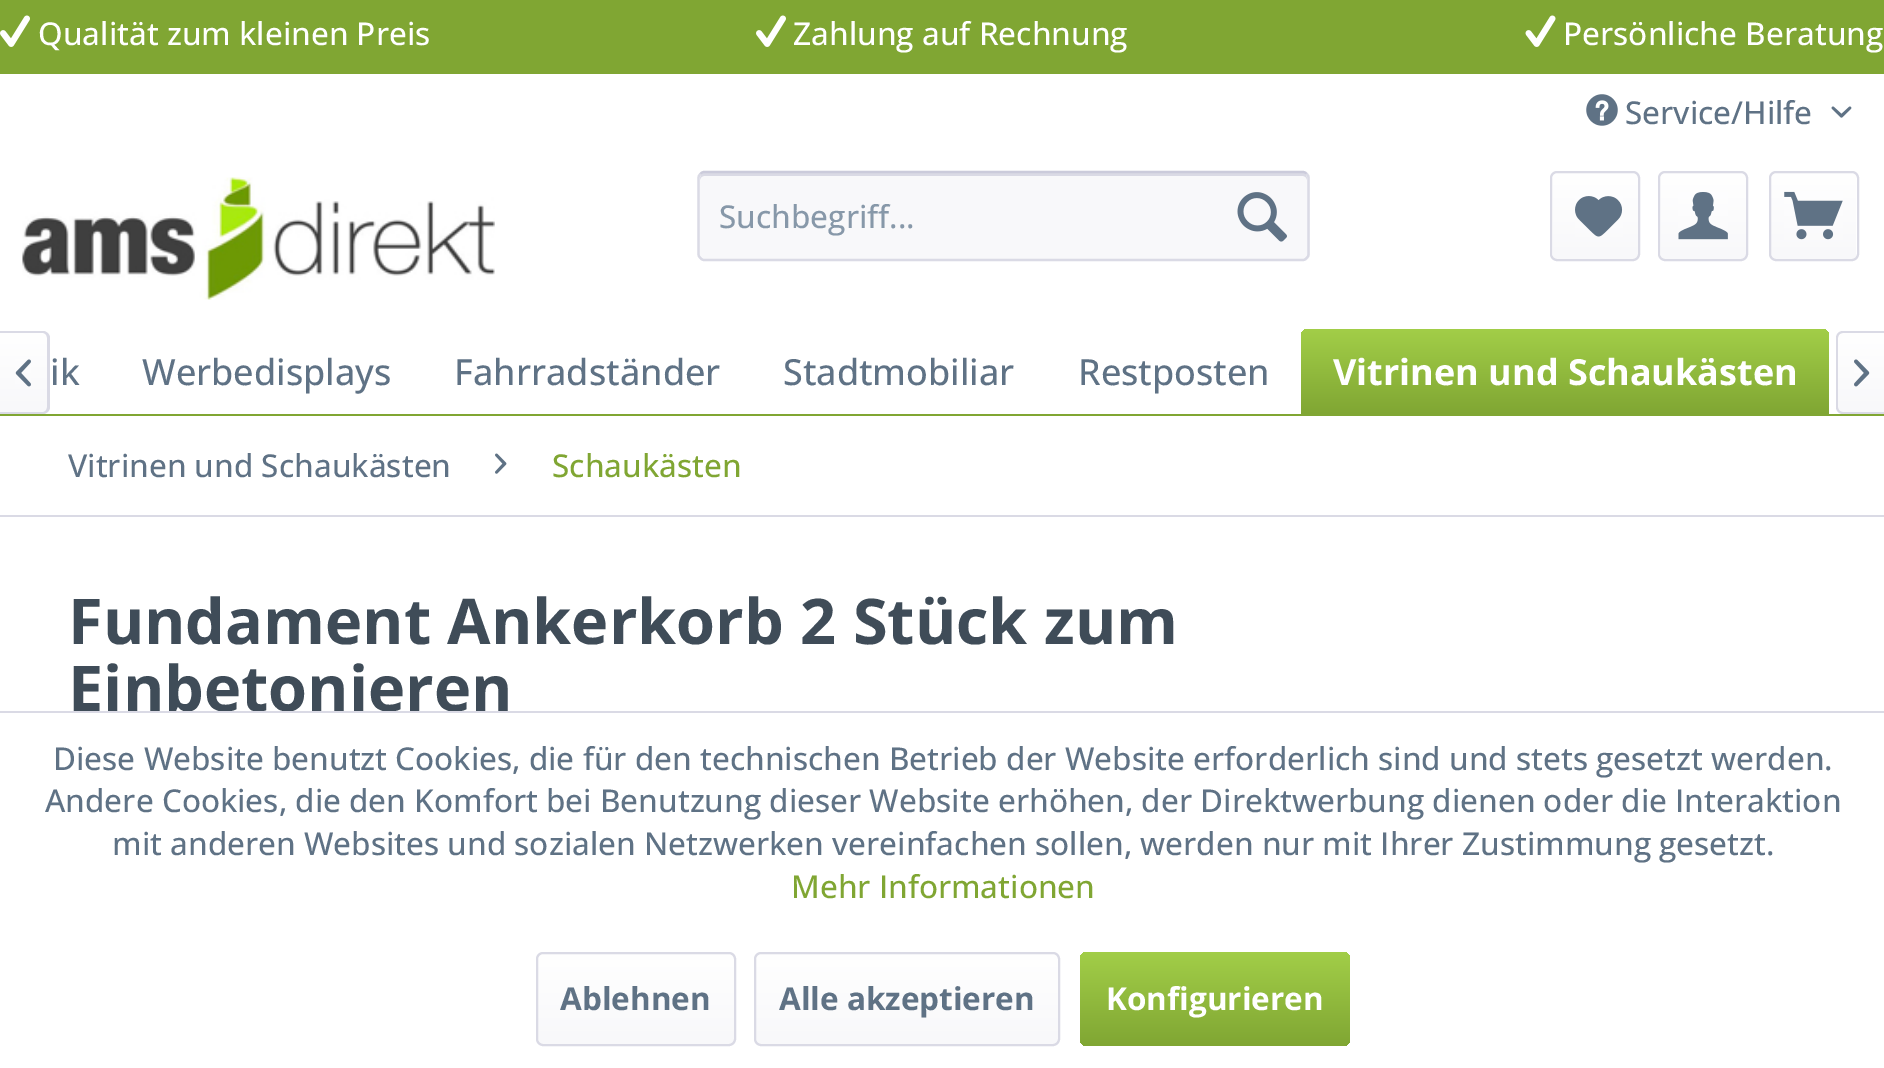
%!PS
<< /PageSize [1884 1068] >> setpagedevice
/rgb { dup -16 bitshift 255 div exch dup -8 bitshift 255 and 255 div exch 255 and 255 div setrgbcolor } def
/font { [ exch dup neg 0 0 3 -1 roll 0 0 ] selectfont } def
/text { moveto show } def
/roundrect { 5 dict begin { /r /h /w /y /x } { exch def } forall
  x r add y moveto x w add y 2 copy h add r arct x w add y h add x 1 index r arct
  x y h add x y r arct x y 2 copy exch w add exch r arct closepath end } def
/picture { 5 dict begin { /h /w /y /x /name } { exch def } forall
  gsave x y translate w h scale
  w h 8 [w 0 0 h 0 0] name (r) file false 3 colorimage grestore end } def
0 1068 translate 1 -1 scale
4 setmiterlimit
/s1 { /OpenSans-Medium 31.5 font 16#FFFFFF rgb } def
/s2 { /OpenSans-Medium 31.5 font 16#5F7285 rgb } def
/s3 { /OpenSans-Medium 31.5 font 16#8798A9 rgb } def
/s4 { /OpenSans-Medium 36 font 16#5F7285 rgb } def
/s5 { /OpenSans-Bold 36 font 16#FFFFFF rgb } def
/s6 { /OpenSans-Medium 31.5 font 16#80A633 rgb } def
/s7 { /OpenSans-Bold 63 font 16#3F4C58 rgb } def
/s8 { /OpenSans-Bold 31.5 font 16#5F7285 rgb } def
/s9 { /OpenSans-Bold 31.5 font 16#FFFFFF rgb } def
16#FFFFFF rgb
0 0 1884 1068 rectfill
16#80A633 rgb
0 0 1884 74 rectfill
(pic1.raw) 0 15 30 32 picture
s1
(Qualität zum kleinen Preis) 38 45 text
(pic1.raw) 756 15 30 32 picture
(Zahlung auf Rechnung) 793 45 text
(pic2.raw) 1525 15 31 32 picture
(Persönliche Beratung) 1563 45 text
(pic3.raw) 1586 94 32 32 picture
s2
(Service/Hilfe) 1625 124 text
(pic4.raw) 1831 106 21 12 picture
(pic5.raw) 22 177 473 123 picture
16#F8F8FA rgb
698 171 612 90 7 roundrect fill
16#DADAE5 rgb
704 176 moveto 1303 176 lineto 1305 176 1307 178 1307 180 curveto 1307 177 1306 173 1302 173 curveto 705 173 lineto 701 173 700 177 700 180 curveto 700 178 702 176 704 176 curveto closepath fill
16#CBCBDB rgb
2.2 setlinewidth
700.5 174 moveto 701.5 172.5 703 172 704 172 curveto 1303 172 lineto 1304 172 1305.5 172.5 1306.5 174 curveto stroke
16#DADAE5 rgb
1306.5 174 moveto 1308 175 1308.5 176.5 1308.5 178 curveto 1308.5 254 lineto 1308.5 255.5 1308 257 1306.5 258 curveto 1305.5 259.5 1304 260 1303 260 curveto 704 260 lineto 703 260 701.5 259.5 700.5 258 curveto 699 257 698.5 255.5 698.5 254 curveto 698.5 178 lineto 698.5 176.5 699 175 700.5 174 curveto stroke
s3
(Suchbegriff...) 719 228 text
(pic6.raw) 1237 192 50 50 picture
gsave 1553 173 85 86 5 roundrect clip newpath
<< /ShadingType 2 /ColorSpace /DeviceRGB /Coords [1595 173 1595 259] /Extend [true true] /Function << /FunctionType 2 /Domain [0 1] /C0 [1 1 1] /C1 [0.973 0.973 0.98] /N 1 >> >> shfill grestore
16#DADAE5 rgb
2 setlinewidth
1551 172 88 88 6 roundrect stroke
(pic7.raw) 1575 196 48 41 picture
gsave 1661 173 85 86 5 roundrect clip newpath
<< /ShadingType 2 /ColorSpace /DeviceRGB /Coords [1703 173 1703 259] /Extend [true true] /Function << /FunctionType 2 /Domain [0 1] /C0 [1 1 1] /C1 [0.973 0.973 0.98] /N 1 >> >> shfill grestore
1659 172 88 88 6 roundrect stroke
(pic8.raw) 1678 192 50 48 picture
gsave 1771 173 85 86 5 roundrect clip newpath
<< /ShadingType 2 /ColorSpace /DeviceRGB /Coords [1814 173 1814 259] /Extend [true true] /Function << /FunctionType 2 /Domain [0 1] /C0 [1 1 1] /C1 [0.973 0.973 0.98] /N 1 >> >> shfill grestore
1770 172 88 88 6 roundrect stroke
(pic9.raw) 1784 191 59 49 picture
16#80A633 rgb
0 414 1884 2 rectfill
gsave 0 333 moveto 42 333 lineto 45 333 47 335 47 338 curveto 47 407 lineto 47 410 45 412 42 412 curveto 0 412 lineto closepath clip newpath
<< /ShadingType 2 /ColorSpace /DeviceRGB /Coords [24 333 24 412] /Extend [true true] /Function << /FunctionType 2 /Domain [0 1] /C0 [1 1 1] /C1 [0.973 0.973 0.98] /N 1 >> >> shfill grestore
16#DADAE5 rgb
0 331 moveto 43 331 lineto 46 331 50 334 50 338 curveto 50 407 lineto 50 411 46 414 43 414 curveto 0 414 lineto closepath 0 333 moveto 43 333 lineto 45 333 47 335 47 338 curveto 47 407 lineto 47 410 45 412 43 412 curveto 0 412 lineto closepath eofill
(pic10.raw) 15 359 16 28 picture
s4
(ik) 50 385 text
(Werbedisplays) 142 385 text
(Fahrradständer) 454 385 text
(Stadtmobiliar) 783 385 text
(Restposten) 1078 385 text
gsave 1308 329 moveto 1822 329 lineto 1826 329 1829 332 1829 336 curveto 1829 414 lineto 1301 414 lineto 1301 336 lineto 1301 332 1304 329 1308 329 curveto closepath clip newpath
<< /ShadingType 2 /ColorSpace /DeviceRGB /Coords [1565 329 1565 414] /Extend [true true] /Function << /FunctionType 2 /Domain [0 1] /C0 [0.635 0.808 0.282] /C1 [0.502 0.651 0.2] /N 1 >> >> shfill grestore
s5
(Vitrinen und Schaukästen) 1333 385 text
gsave 1843 333 moveto 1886 333 lineto 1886 412 lineto 1843 412 lineto 1840 412 1838 410 1838 407 curveto 1838 338 lineto 1838 335 1840 333 1843 333 curveto closepath clip newpath
<< /ShadingType 2 /ColorSpace /DeviceRGB /Coords [1862 333 1862 412] /Extend [true true] /Function << /FunctionType 2 /Domain [0 1] /C0 [1 1 1] /C1 [0.973 0.973 0.98] /N 1 >> >> shfill grestore
16#DADAE5 rgb
1843 331 moveto 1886 331 lineto 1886 414 lineto 1843 414 lineto 1839 414 1836 411 1836 407 curveto 1836 338 lineto 1836 334 1839 331 1843 331 curveto closepath 1843 333 moveto 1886 333 lineto 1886 412 lineto 1843 412 lineto 1840 412 1838 410 1838 407 curveto 1838 338 lineto 1838 335 1840 333 1843 333 curveto closepath eofill
(pic11.raw) 1854 359 16 28 picture
0 515 1884 2 rectfill
s2
(Vitrinen und Schaukästen) 68 477 text
(pic12.raw) 495 453 12 21 picture
s6
(Schaukästen) 552 477 text
s7
(Fundament Ankerkorb 2 Stück zum) 68 644 text
(Einbetonieren) 68 711 text
16#DADAE5 rgb
0 711 1884 2 rectfill
s2
(Diese Website benutzt Cookies, die für den technischen Betrieb der Website erforderlich sind und stets gesetzt werden.) 53 770 text
(Andere Cookies, die den Komfort bei Benutzung dieser Website erhöhen, der Direktwerbung dienen oder die Interaktion) 45 812 text
(mit anderen Websites und sozialen Netzwerken vereinfachen sollen, werden nur mit Ihrer Zustimmung gesetzt.) 112 855 text
s6
(Mehr Informationen) 791 898 text
gsave 538 954 196 90 5 roundrect clip newpath
<< /ShadingType 2 /ColorSpace /DeviceRGB /Coords [636 954 636 1044] /Extend [true true] /Function << /FunctionType 2 /Domain [0 1] /C0 [1 1 1] /C1 [0.973 0.973 0.98] /N 1 >> >> shfill grestore
16#DADAE5 rgb
537 953 198 92 6 roundrect stroke
s8
(Ablehnen) 560 1010 text
gsave 756 954 302 90 5 roundrect clip newpath
<< /ShadingType 2 /ColorSpace /DeviceRGB /Coords [907 954 907 1044] /Extend [true true] /Function << /FunctionType 2 /Domain [0 1] /C0 [1 1 1] /C1 [0.973 0.973 0.98] /N 1 >> >> shfill grestore
16#DADAE5 rgb
755 953 304 92 6 roundrect stroke
s8
(Alle akzeptieren) 779 1010 text
gsave 1080 952 270 94 7 roundrect clip newpath
<< /ShadingType 2 /ColorSpace /DeviceRGB /Coords [1215 952 1215 1046] /Extend [true true] /Function << /FunctionType 2 /Domain [0 1] /C0 [0.635 0.808 0.282] /C1 [0.502 0.651 0.2] /N 1 >> >> shfill grestore
s9
(Konfigurieren) 1106 1010 text
showpage
